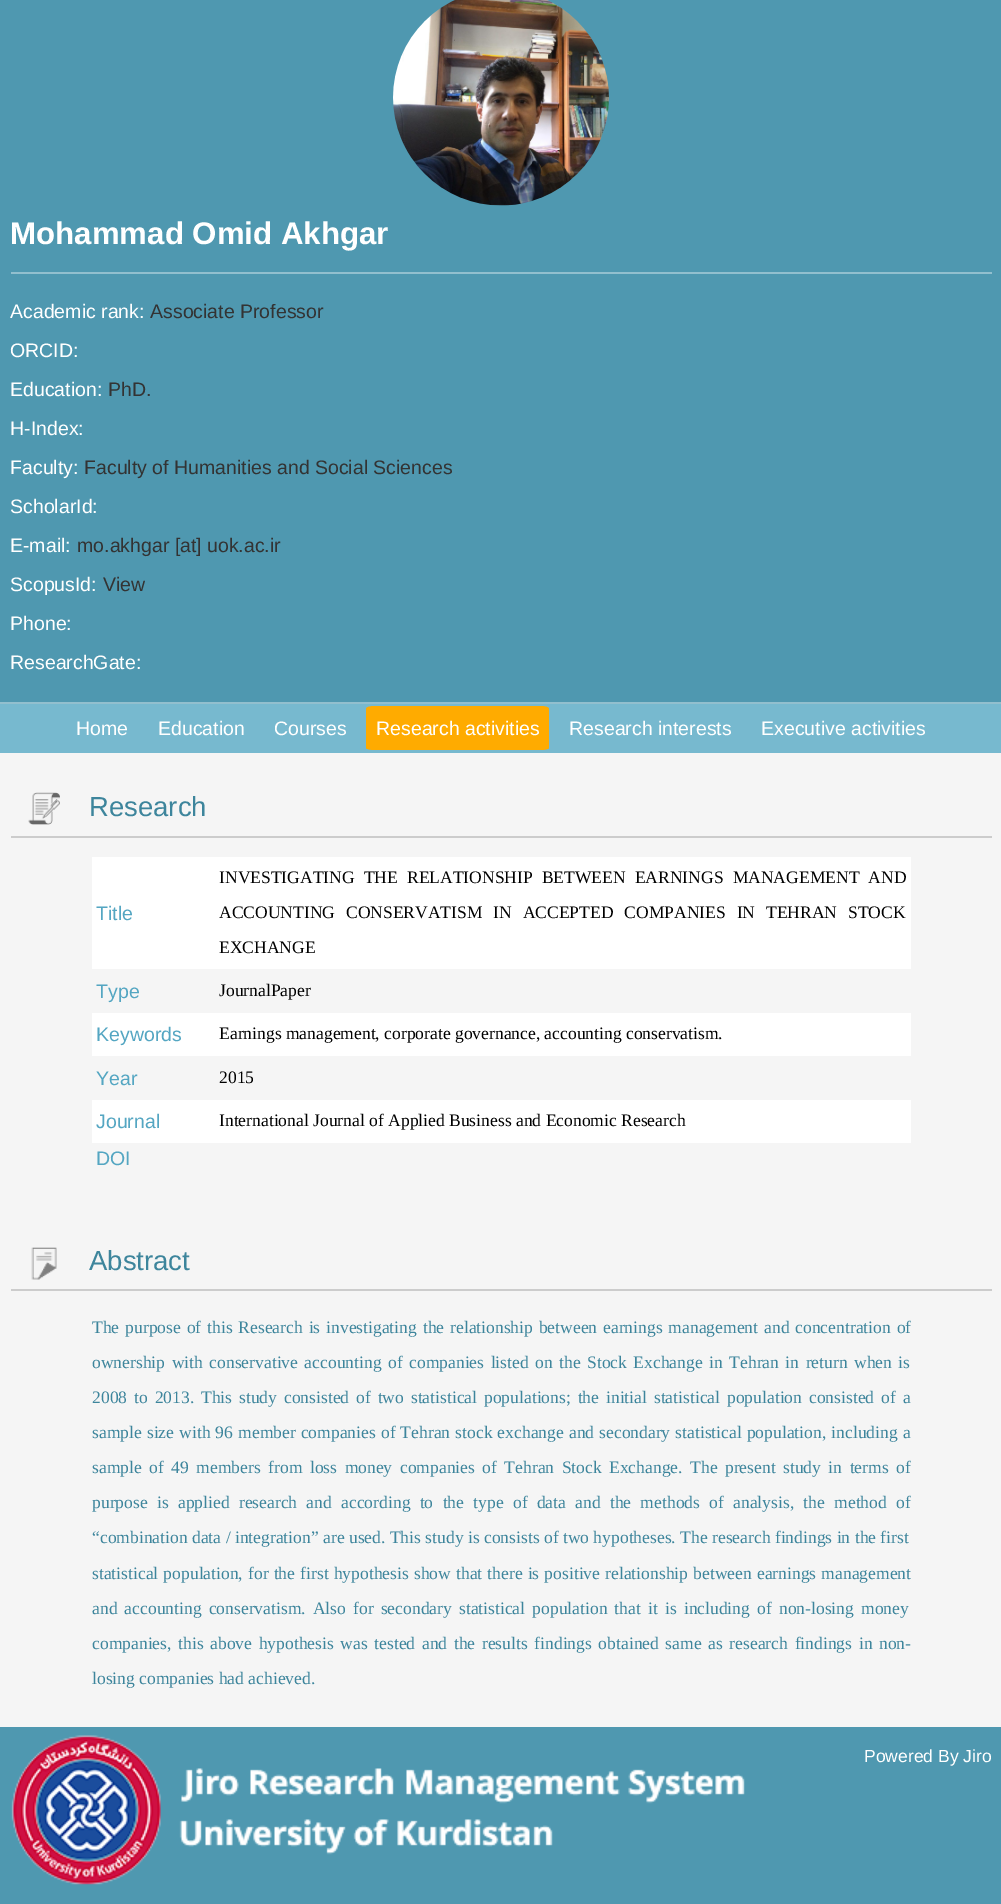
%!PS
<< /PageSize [1001 1904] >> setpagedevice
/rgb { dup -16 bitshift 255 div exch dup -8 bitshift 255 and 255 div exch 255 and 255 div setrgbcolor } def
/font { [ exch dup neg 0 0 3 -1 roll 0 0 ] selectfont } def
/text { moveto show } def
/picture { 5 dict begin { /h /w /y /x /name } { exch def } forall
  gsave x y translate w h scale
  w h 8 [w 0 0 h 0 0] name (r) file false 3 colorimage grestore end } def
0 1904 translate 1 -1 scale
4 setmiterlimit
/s1 { /LiberationSans-Bold 31.25 font 16#FFFFFF rgb } def
/s2 { /LiberationSans-Regular 19.5 font 16#FFFFFF rgb } def
/s3 { /LiberationSans-Regular 19.5 font 16#333333 rgb } def
/s4 { /LiberationSans-Regular 27.5 font 16#3D859C rgb } def
/s5 { /LiberationSans-Regular 19.5 font 16#54A6C2 rgb } def
/s6 { /LiberationSerif-Regular 17.55 font 16#000000 rgb } def
/s7 { /LiberationSerif-Regular 17.55 font 16#3D859C rgb } def
/s8 { /LiberationSans-Regular 17.55 font 16#FFFFFF rgb } def
16#4F98B0 rgb
0 0 1001 1904 rectfill
(pic1.raw) 393 0 216 206 picture
16#92BFCE rgb
11 272 981 2 rectfill
s1
(Mohammad Omid Akhgar) 10 244 text
s2
(Academic rank:) 10 318 text
s3
(Associate Professor) 150 318 text
s2
(ORCID:) 10 357 text
(Education:) 10 396 text
s3
(PhD.) 108 396 text
s2
(H-Index:) 10 435 text
(Faculty:) 10 474 text
s3
(Faculty of Humanities and Social Sciences) 84 474 text
s2
(ScholarId:) 10 513 text
(E-mail:) 10 552 text
s3
(mo.akhgar [at] uok.ac.ir) 77 552 text
s2
(ScopusId:) 10 591 text
s3
(View) 103 591 text
s2
(Phone:) 10 630 text
(ResearchGate:) 10 669 text
16#77B9CF rgb
0 704 1001 49 rectfill
16#92BFCE rgb
0 702 1001 2 rectfill
s2
(Home) 76 735 text
(Education) 158 735 text
(Courses) 274 735 text
16#FFAB00 rgb
375 706 moveto 540 706 lineto 545 706 549 707 549 709 curveto 549 748 lineto 549 749 545 750 540 750 curveto 375 750 lineto 370 750 366 749 366 748 curveto 366 709 lineto 366 707 370 706 375 706 curveto closepath fill
s2
(Research activities) 376 735 text
(Research interests) 569 735 text
(Executive activities) 761 735 text
16#F5F5F5 rgb
0 753 1001 974 rectfill
16#CCCCCC rgb
11 836 981 2 rectfill
(pic2.raw) 28 792 32 33 picture
s4
(Research) 89 816 text
16#FFFFFF rgb
92 857 819 112 rectfill
s5
(Title) 96 920 text
/LiberationSerif-Regular 17.55 font
16#000000 rgb
219 883 moveto 4.75 0 32 (INVESTIGATING THE RELATIONSHIP BETWEEN EARNINGS MANAGEMENT AND) widthshow
219 918 moveto 6.5 0 32 (ACCOUNTING CONSERVATISM IN ACCEPTED COMPANIES IN TEHRAN STOCK) widthshow
(EXCHANGE) 219 953 text
s5
(Type) 96 998 text
s6
(JournalPaper) 219 996 text
16#FFFFFF rgb
92 1013 819 43 rectfill
s5
(Keywords) 96 1041 text
s6
(Earnings management, corporate governance, accounting conservatism.) 219 1039 text
s5
(Year) 96 1085 text
s6
(2015) 219 1083 text
16#FFFFFF rgb
92 1100 819 43 rectfill
s5
(Journal) 96 1128 text
s6
(International Journal of Applied Business and Economic Research) 219 1126 text
s5
(DOI) 96 1165 text
16#CCCCCC rgb
11 1289 981 2 rectfill
(pic3.raw) 31 1247 26 33 picture
s4
(Abstract) 89 1270 text
/LiberationSerif-Regular 17.55 font
92 1333 moveto 1.5 0 32 (The purpose of this Research is investigating the relationship between earnings management and concentration of) widthshow
92 1368 moveto 2.1 0 32 (ownership with conservative accounting of companies listed on the Stock Exchange in Tehran in return when is) widthshow
92 1403 moveto 2.5 0 32 (2008 to 2013. This study consisted of two statistical populations; the initial statistical population consisted of a) widthshow
92 1438 moveto 0.7 0 32 (sample size with 96 member companies of Tehran stock exchange and secondary statistical population, including a) widthshow
92 1473 moveto 3.1 0 32 (sample of 49 members from loss money companies of Tehran Stock Exchange. The present study in terms of) widthshow
92 1508 moveto 4.9 0 32 (purpose is applied research and according to the type of data and the methods of analysis, the method of) widthshow
(“combination data / integration” are used. This study is consists of two hypotheses. The research findings in the first) 92 1543 text
92 1579 moveto 0.75 0 32 (statistical population, for the first hypothesis show that there is positive relationship between earnings management) widthshow
92 1614 moveto 2.75 0 32 (and accounting conservatism. Also for secondary statistical population that it is including of non-losing money) widthshow
92 1649 moveto 2.25 0 32 (companies, this above hypothesis was tested and the results findings obtained same as research findings in non-) widthshow
(losing companies had achieved.) 92 1684 text
(pic4.raw) 11 1735 734 150 picture
s8
(Powered By Jiro) 864 1762 text
showpage
